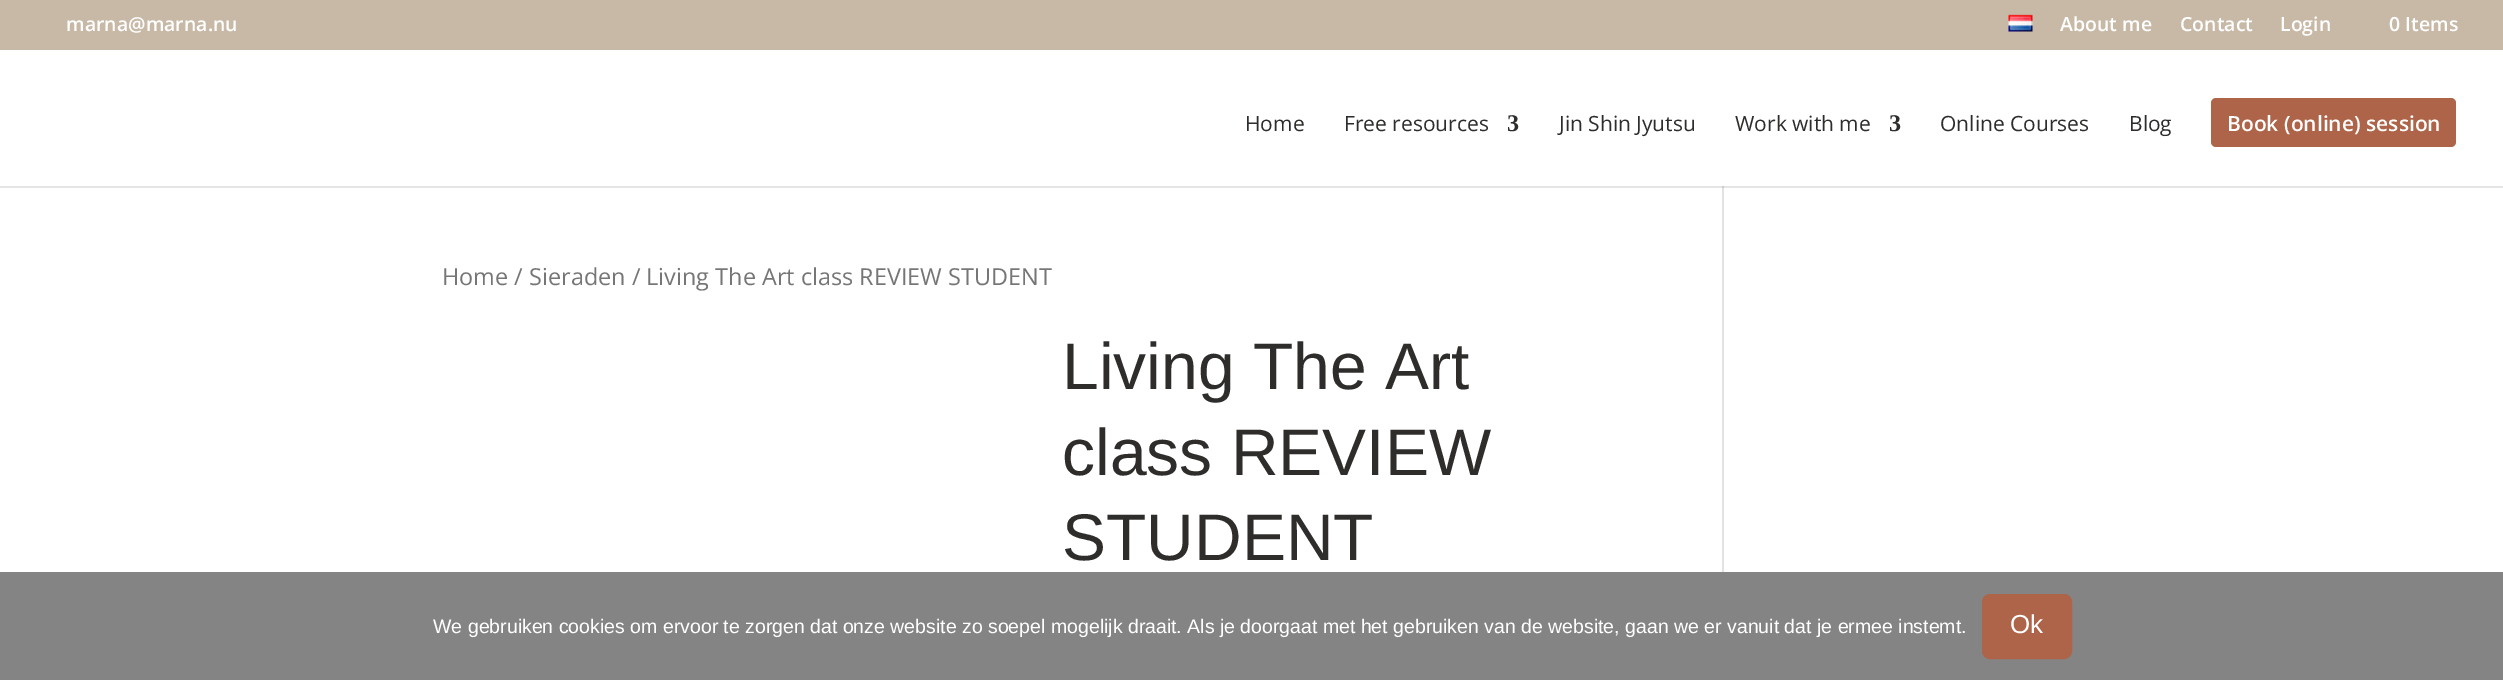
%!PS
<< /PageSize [2503 680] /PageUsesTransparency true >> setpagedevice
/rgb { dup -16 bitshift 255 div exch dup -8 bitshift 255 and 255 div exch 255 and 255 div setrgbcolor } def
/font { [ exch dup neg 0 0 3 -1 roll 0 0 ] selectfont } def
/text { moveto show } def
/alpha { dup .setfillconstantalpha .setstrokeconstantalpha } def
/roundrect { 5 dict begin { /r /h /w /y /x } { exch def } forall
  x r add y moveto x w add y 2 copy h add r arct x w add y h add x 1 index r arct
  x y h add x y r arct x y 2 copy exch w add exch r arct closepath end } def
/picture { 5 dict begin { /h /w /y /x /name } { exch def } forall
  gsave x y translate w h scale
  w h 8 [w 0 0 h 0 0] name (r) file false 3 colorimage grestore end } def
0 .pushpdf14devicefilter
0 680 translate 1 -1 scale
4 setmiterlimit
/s1 { /OpenSans-SemiBold 19.5 font 16#FFFFFF rgb } def
/s2 { /OpenSans-Regular 21 font 16#2E2D2C rgb } def
/s3 { /LiberationSerif-Bold 24 font 16#2E2D2C rgb } def
/s4 { /OpenSans-SemiBold 21 font 16#FFFFFF rgb } def
/s5 { /OpenSans-Regular 23.45 font 16#767676 rgb } def
/s6 { /LiberationSans-Regular 66 font 16#2E2D2C rgb } def
/s7 { /LiberationSans-Regular 19.5 font 16#FFFFFF rgb } def
/s8 { /LiberationSans-Regular 26 font 16#FFFFFF rgb } def
16#FFFFFF rgb
0 0 2503 680 rectfill
16#C8B9A7 rgb
0 0 2503 50 rectfill
s1
(marna@marna.nu) 66 31 text
(pic1.raw) 2008 14 25 18 picture
(About me) 2060 31 text
(Contact) 2180 31 text
(Login) 2280 31 text
(0 Items) 2389 31 text
16#E2E2E2 rgb
1722 186 2 386 rectfill
0.1 alpha
16#000000 rgb
0 186 moveto 0 188 lineto 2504 188 lineto 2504 47 lineto 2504 186 lineto closepath fill
1 alpha
s2
(Home) 1245 131 text
(Free resources) 1344 131 text
s3
(3) 1507 131 text
s2
(Jin Shin Jyutsu) 1559 131 text
(Work with me) 1735 131 text
s3
(3) 1889 131 text
s2
(Online Courses) 1940 131 text
(Blog) 2129 131 text
16#AD6448 rgb
2211 98 245 49 5 roundrect fill
s4
(Book \(online\) session) 2227 131 text
s5
(Home / Sieraden / Living The Art class REVIEW STUDENT) 442 285 text
s6
(Living The Art) 1062 389 text
(class REVIEW) 1062 475 text
(STUDENT) 1062 560 text
16#848484 rgb
0 572 2503 108 rectfill
s7
(We gebruiken cookies om ervoor te zorgen dat onze website zo soepel mogelijk draait. Als je doorgaat met het gebruiken van de website, gaan we er vanuit dat je ermee instemt.) 433 633 text
16#AD6448 rgb
1983.5 595.5 87 62 6.5 roundrect gsave fill grestore
3 setlinewidth
stroke
s8
(Ok) 2010 633 text
.poppdf14devicefilter showpage
